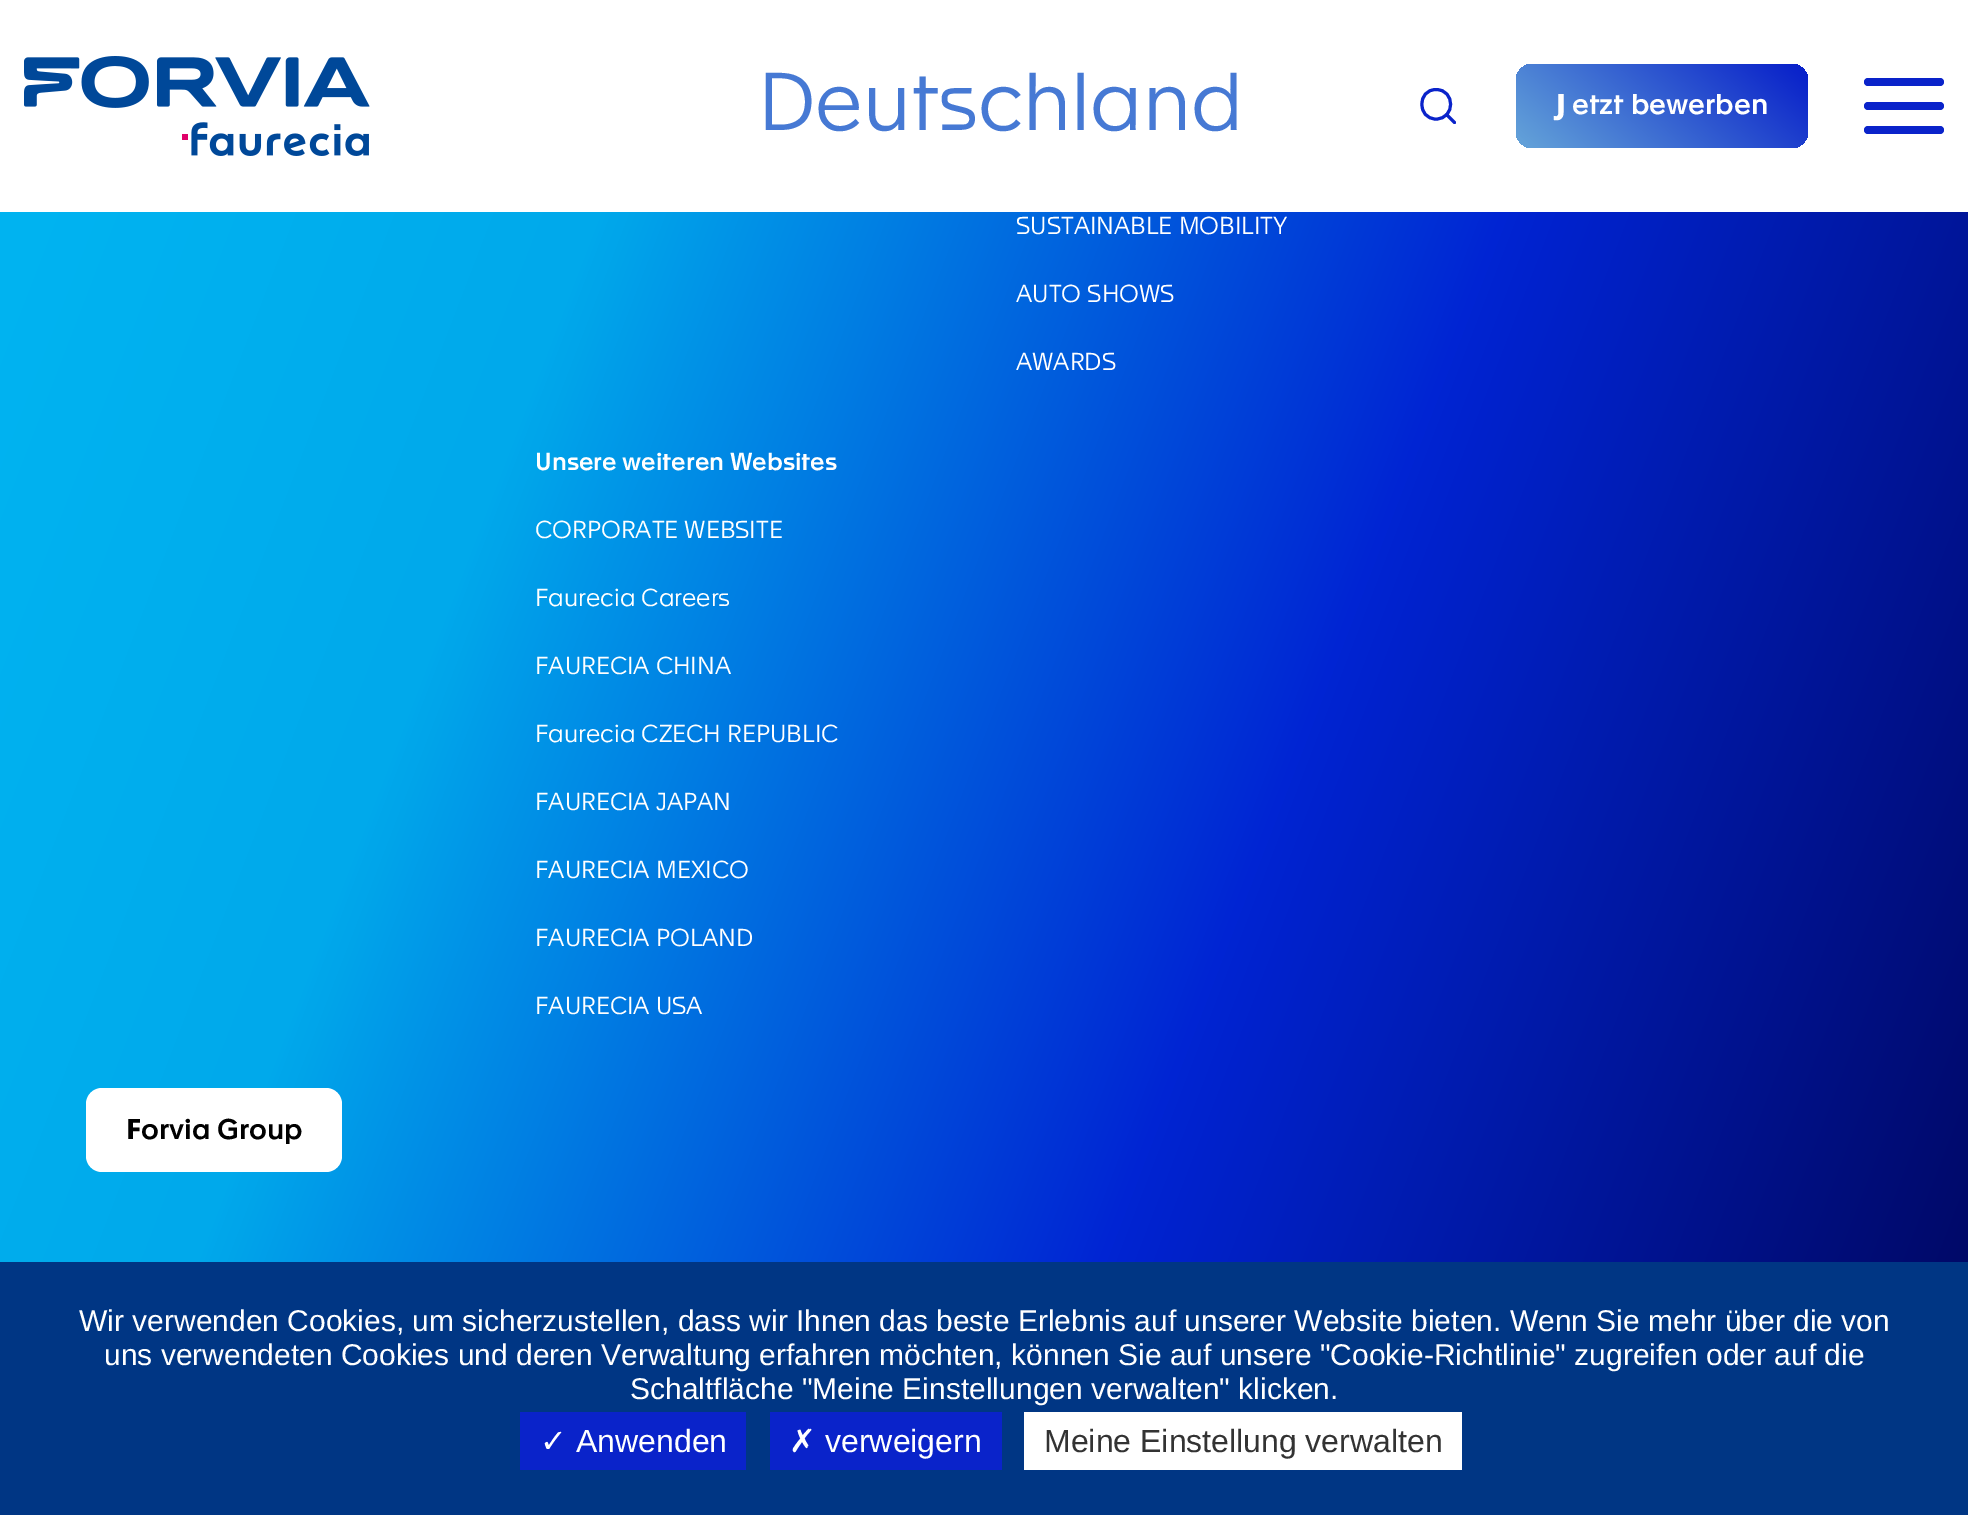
%!PS
<< /PageSize [1968 1515] >> setpagedevice
/rgb { dup -16 bitshift 255 div exch dup -8 bitshift 255 and 255 div exch 255 and 255 div setrgbcolor } def
/font { [ exch dup neg 0 0 3 -1 roll 0 0 ] selectfont } def
/text { moveto show } def
/roundrect { 5 dict begin { /r /h /w /y /x } { exch def } forall
  x r add y moveto x w add y 2 copy h add r arct x w add y h add x 1 index r arct
  x y h add x y r arct x y 2 copy exch w add exch r arct closepath end } def
/picture { 5 dict begin { /h /w /y /x /name } { exch def } forall
  gsave x y translate w h scale
  w h 8 [w 0 0 h 0 0] name (r) file false 3 colorimage grestore end } def
0 1515 translate 1 -1 scale
4 setmiterlimit
/s1 { /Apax-Light 80 font 16#4679D4 rgb } def
/s2 { /NotoSans-Black 28 font 16#FFFFFF rgb } def
/s3 { /Apax-Medium 28 font 16#FFFFFF rgb } def
/s4 { /Apax-Light 24 font 16#FFFFFF rgb } def
/s5 { /Apax-Medium 24 font 16#FFFFFF rgb } def
/s6 { /NotoSans-ExtraBold 28 font 16#000000 rgb } def
/s7 { /Apax-Medium 28 font 16#000000 rgb } def
/s8 { /LiberationSans-Regular 30 font 16#FFFFFF rgb } def
/s9 { /DejaVuSans-Regular 32 font 16#FFFFFF rgb } def
/s10 { /LiberationSans-Regular 32 font 16#FFFFFF rgb } def
/s11 { /LiberationSans-Regular 32 font 16#333333 rgb } def
16#FFFFFF rgb
0 0 1968 1515 rectfill
(pic1.raw) 24 56 346 100 picture
s1
(Deutschland) 758 130 text
16#0A23CA rgb
3 setlinewidth
1 setlinecap
1 setlinejoin
1436 119 moveto 1455.5 119 1455.5 89.5 1436 89.5 curveto 1417 89.5 1417 119 1436 119 curveto closepath 1454.5 122.5 moveto 1446.5 114.5 lineto stroke
gsave 1516 64 292 84 16 roundrect clip newpath
<< /ShadingType 2 /ColorSpace /DeviceRGB /Coords [1746 10 1578 202] /Extend [true true] /Function << /FunctionType 3 /Domain [0 1] /Functions [<< /FunctionType 2 /Domain [0 1] /C0 [0.039 0.137 0.792] /C1 [0.039 0.137 0.792] /N 1 >> << /FunctionType 2 /Domain [0 1] /C0 [0.039 0.137 0.792] /C1 [0.38 0.624 0.847] /N 1 >> << /FunctionType 2 /Domain [0 1] /C0 [0.38 0.624 0.847] /C1 [0.38 0.624 0.847] /N 1 >>] /Bounds [0.04 0.96] /Encode [0 1 0 1 0 1] >> >> shfill grestore
s2
(J) 1556 114 text
s3
(etzt bewerben) 1572 114 text
16#0A23CA rgb
1864 78 80 8 4 roundrect fill
1864 102 80 8 4 roundrect fill
1864 126 80 8 4 roundrect fill
gsave 0 212 moveto 1968 212 lineto 1968 1262 lineto 0 1262 lineto closepath clip newpath
<< /ShadingType 2 /ColorSpace /DeviceRGB /Coords [-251 -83 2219 865] /Extend [true true] /Function << /FunctionType 3 /Domain [0 1] /Functions [<< /FunctionType 2 /Domain [0 1] /C0 [0 0.733 0.957] /C1 [0 0.663 0.922] /N 1 >> << /FunctionType 2 /Domain [0 1] /C0 [0 0.663 0.922] /C1 [0 0.141 0.827] /N 1 >> << /FunctionType 2 /Domain [0 1] /C0 [0 0.141 0.827] /C1 [0 0.024 0.361] /N 1 >>] /Bounds [0.34 0.66] /Encode [0 1 0 1 0 1] >> >> shfill grestore
s4
(SUSTAINABLE MOBILITY) 1016 234 text
(AUTO SHOWS) 1016 302 text
(AWARDS) 1016 370 text
s5
(Unsere weiteren Websites) 535 470 text
s4
(CORPORATE WEBSITE) 535 538 text
(Faurecia Careers) 535 606 text
(FAURECIA CHINA) 535 674 text
(Faurecia CZECH REPUBLIC) 535 742 text
(FAURECIA JAPAN) 535 810 text
(FAURECIA MEXICO) 535 878 text
(FAURECIA POLAND) 535 946 text
(FAURECIA USA) 535 1014 text
86 1088 256 84 16 roundrect fill
s6
(F) 126 1139 text
s7
(orvia Group) 141 1139 text
16#003684 rgb
0 1262 1968 253 rectfill
s8
(Wir verwenden Cookies, um sicherzustellen, dass wir Ihnen das beste Erlebnis auf unserer Website bieten. Wenn Sie mehr über die von) 79 1331 text
(uns verwendeten Cookies und deren Verwaltung erfahren möchten, können Sie auf unsere "Cookie-Richtlinie" zugreifen oder auf die) 104 1365 text
(Schaltfläche "Meine Einstellungen verwalten" klicken.) 630 1399 text
16#0A23CA rgb
520 1412 226 58 rectfill
s9
(✓) 540 1452 text
s10
(Anwenden) 576 1452 text
16#0A23CA rgb
770 1412 232 58 rectfill
s9
(✗) 789 1452 text
s10
(verweigern) 825 1452 text
1024 1412 438 58 rectfill
s11
(Meine Einstellung verwalten) 1044 1452 text
showpage
